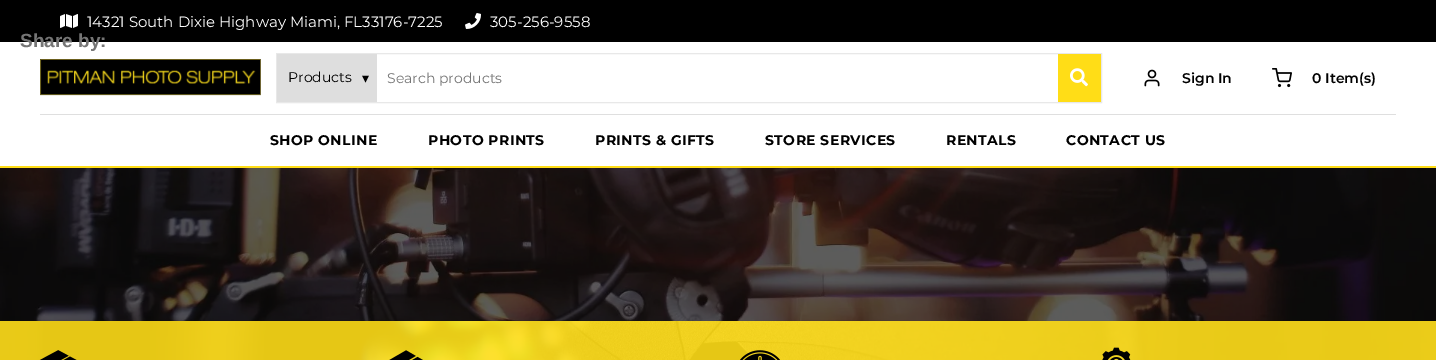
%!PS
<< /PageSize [1436 360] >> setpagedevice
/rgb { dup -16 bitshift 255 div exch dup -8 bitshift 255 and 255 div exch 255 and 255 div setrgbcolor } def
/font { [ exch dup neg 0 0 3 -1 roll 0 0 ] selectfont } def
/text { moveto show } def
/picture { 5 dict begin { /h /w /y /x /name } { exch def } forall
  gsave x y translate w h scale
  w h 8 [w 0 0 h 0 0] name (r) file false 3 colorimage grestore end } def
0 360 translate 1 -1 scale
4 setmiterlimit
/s1 { /LiberationSans-Bold 19 font 16#757575 rgb } def
/s2 { /Montserrat-Regular 15 font 16#FFFFFF rgb } def
/s3 { /Montserrat-Regular 14 font 16#000000 rgb } def
/s4 { /DejaVuSans-Regular 14 font 16#000000 rgb } def
/s5 { /Montserrat-Regular 14 font 16#757575 rgb } def
/s6 { /Montserrat-SemiBold 14 font 16#000000 rgb } def
16#FFFFFF rgb
0 0 1436 360 rectfill
16#000000 rgb
0 0 1436 42 rectfill
s1
(Share by:) 20 47 text
(pic1.raw) 60 14 18 14 picture
s2
(14321 South Dixie Highway Miami, FL33176-7225) 87 27 text
(pic2.raw) 465 13 16 16 picture
(305-256-9558) 490 27 text
(pic3.raw) 40 59 221 37 picture
16#E8E8E8 rgb
276.5 53.5 825 49 rectstroke
16#DEDEDE rgb
277 54 100 48 rectfill
s3
(Products) 288 82 text
s4
(▾) 362 83 text
s5
(Search products) 387 83 text
16#FFDD17 rgb
1058 54 43 48 rectfill
(pic4.raw) 1070 68 18 19 picture
(pic5.raw) 1144 69 16 18 picture
s6
(Sign In) 1182 83 text
(pic6.raw) 1272 68 20 20 picture
(0 Item\(s\)) 1312 83 text
16#FFDD17 rgb
0 166 1436 2 rectfill
16#DFDFDF rgb
40 114 1356 1 rectfill
/Montserrat-Bold 14 font
16#000000 rgb
270 145 moveto 0.4 0 (SHOP ONLINE) ashow
428 145 moveto 0.4 0 (PHOTO PRINTS) ashow
595 145 moveto 0.4 0 (PRINTS & GIFTS) ashow
765 145 moveto 0.4 0 (STORE SERVICES) ashow
946 145 moveto 0.4 0 (RENTALS) ashow
1066 145 moveto 0.4 0 (CONTACT US) ashow
(pic7.raw) 0 168 1436 153 picture
(pic8.raw) 0 321 1436 39 picture
(pic9.raw) 39 350 38 10 picture
(pic10.raw) 389 350 34 10 picture
(pic11.raw) 740 350 40 10 picture
(pic12.raw) 1102 347 29 13 picture
showpage
